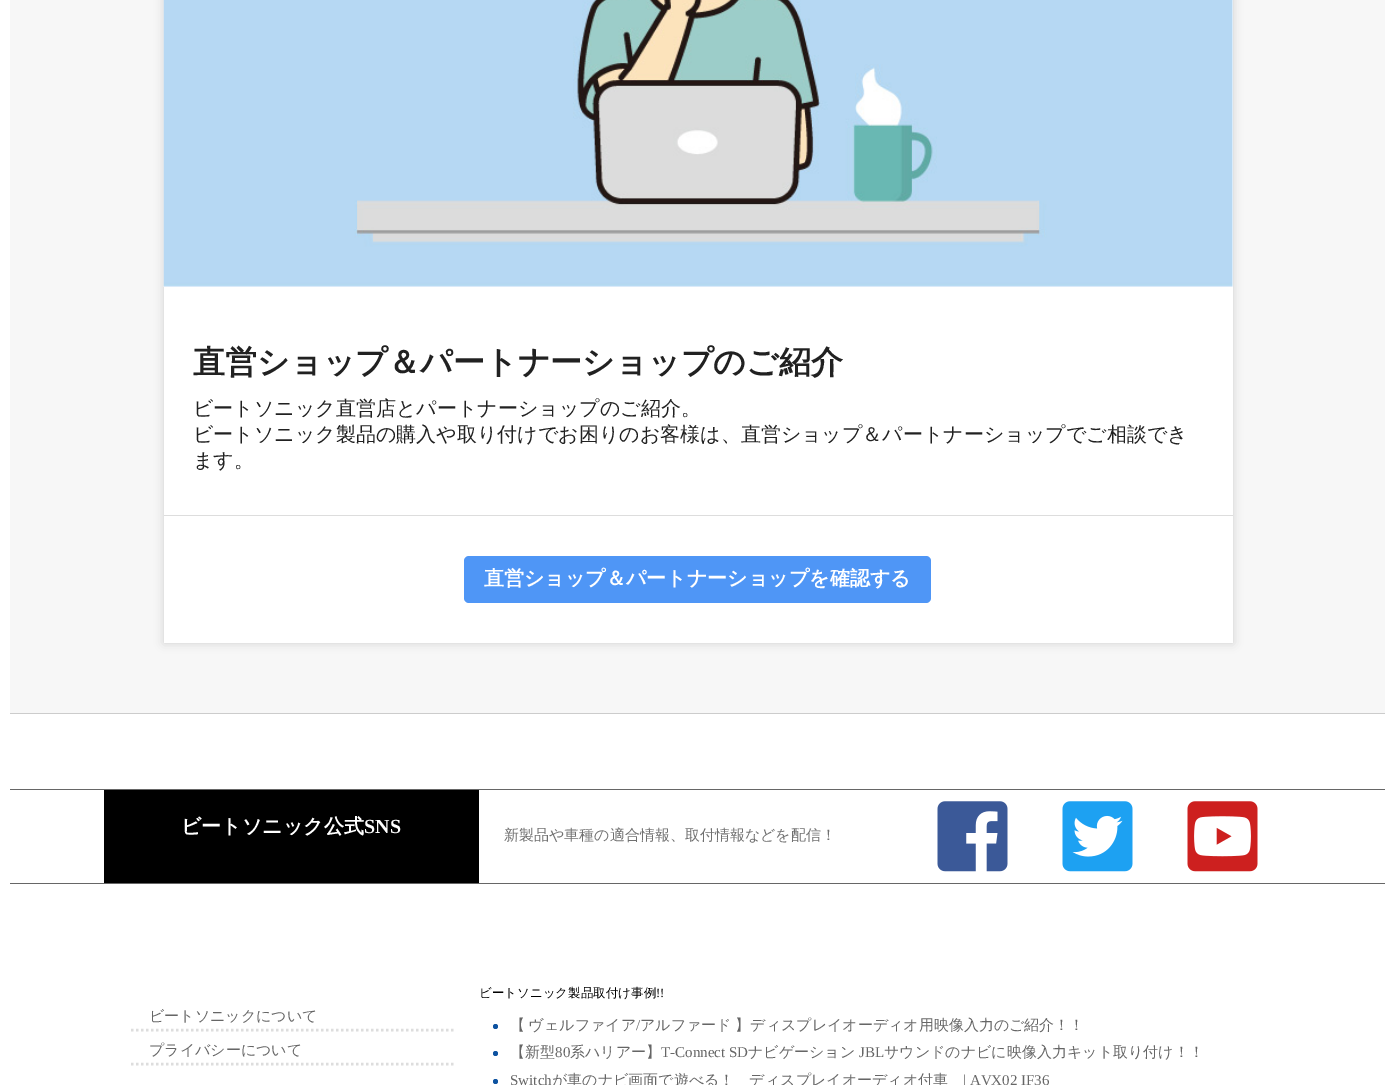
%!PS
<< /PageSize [1394 1085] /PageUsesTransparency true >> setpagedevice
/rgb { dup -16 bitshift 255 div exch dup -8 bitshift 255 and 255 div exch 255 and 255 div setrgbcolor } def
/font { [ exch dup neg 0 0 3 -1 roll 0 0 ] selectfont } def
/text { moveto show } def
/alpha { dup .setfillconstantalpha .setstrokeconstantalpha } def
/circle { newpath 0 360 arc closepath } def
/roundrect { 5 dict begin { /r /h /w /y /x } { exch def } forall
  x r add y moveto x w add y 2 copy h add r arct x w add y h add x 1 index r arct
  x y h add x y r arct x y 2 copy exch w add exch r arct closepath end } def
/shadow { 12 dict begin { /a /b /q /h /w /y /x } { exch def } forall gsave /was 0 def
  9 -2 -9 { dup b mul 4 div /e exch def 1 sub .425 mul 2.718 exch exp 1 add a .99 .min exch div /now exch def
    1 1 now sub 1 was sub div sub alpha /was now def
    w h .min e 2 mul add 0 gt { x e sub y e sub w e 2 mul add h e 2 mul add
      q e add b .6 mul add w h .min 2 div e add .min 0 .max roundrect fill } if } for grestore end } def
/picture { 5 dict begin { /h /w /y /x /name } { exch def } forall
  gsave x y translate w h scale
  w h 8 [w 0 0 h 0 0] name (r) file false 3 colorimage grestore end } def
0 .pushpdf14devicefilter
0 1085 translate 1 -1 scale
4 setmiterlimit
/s1 { /WenQuanYiZenHei-Bold 32 font 16#212121 rgb } def
/s2 { /WenQuanYiZenHei-Medium 20 font 16#212121 rgb } def
/s3 { /WenQuanYiZenHei-Bold 20 font 16#FFFFFF rgb } def
/s4 { /LiberationSerif-Bold 20 font 16#FFFFFF rgb } def
/s5 { /WenQuanYiZenHei-Medium 15 font 16#707070 rgb } def
/s6 { /WenQuanYiZenHei-Medium 15 font 16#666666 rgb } def
/s7 { /WenQuanYiZenHei-Medium 12.5 font 16#000000 rgb } def
/s8 { /LiberationSerif-Regular 12.5 font 16#000000 rgb } def
/s9 { /LiberationSerif-Regular 15 font 16#666666 rgb } def
16#FFFFFF rgb
0 0 1394 1085 rectfill
16#F7F7F7 rgb
10 0 1375 713 rectfill
16#CCCCCC rgb
10 713 1375 1 rectfill
16#000000 rgb
164 -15 1069 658 0 5 0.16 shadow
16#FFFFFF rgb
164 0 1069 643 rectfill
(pic1.raw) 163 0 1070 287 picture
s1
(直営ショップ＆パートナーショップのご紹介) 193 373 text
s2
(ビートソニック直営店とパートナーショップのご紹介。) 193 415 text
(ビートソニック製品の購入や取り付けでお困りのお客様は、直営ショップ＆パートナーショップでご相談でき) 193 441 text
(ます。) 193 467 text
16#DDDDDD rgb
164 515 1069 1 rectfill
16#4F96F6 rgb
464 556 467 47 5 roundrect fill
s3
(直営ショップ＆パートナーショップを確認する) 484 585 text
16#666666 rgb
10 789 1375 1 rectfill
10 883 1375 1 rectfill
16#000000 rgb
104 790 375 93 rectfill
s3
(ビートソニック公式) 181 833 text
s4
(SNS) 364 833 text
s5
(新製品や車種の適合情報、取付情報などを配信！) 504 840 text
(pic2.raw) 937 801 71 71 picture
(pic3.raw) 1062 801 71 71 picture
(pic4.raw) 1187 801 71 71 picture
16#DDDDDD rgb
2.5 setlinewidth
[2.5 2.5] 0 setdash
131 1030 moveto 454 1030 lineto stroke
s6
(ビートソニックについて) 149 1021 text
16#DDDDDD rgb
131 1064 moveto 454 1064 lineto stroke
s6
(プライバシーについて) 149 1055 text
s7
(ビートソニック製品取付け事例) 479 997 text
s8
(!!) 656 997 text
16#0D52A0 rgb
495.5 1026.5 2.5 circle fill
/WenQuanYiZenHei-Medium 15 font
16#666666 rgb
510 1030 moveto -1 0 32 (【 ヴェルファイア) widthshow
s9
(/) 636 1030 text
/WenQuanYiZenHei-Medium 15 font
640 1030 moveto -1 0 32 (アルファード 】ディスプレイオーディオ用映像入力のご紹介！！) widthshow
16#0D52A0 rgb
495.5 1053.5 2.5 circle fill
s6
(【新型) 510 1057 text
s9
(80) 555 1057 text
s6
(系ハリアー】) 570 1057 text
s9
(T-Connect SD) 661 1057 text
s6
(ナビゲーション) 748 1057 text
s9
(JBL) 859 1057 text
s6
(サウンドのナビに映像入力キット取り付け！！) 884 1057 text
16#0D52A0 rgb
495.5 1081.5 2.5 circle fill
s9
(Switch) 510 1085 text
s6
(が車のナビ画面で遊べる！　ディスプレイオーディオ付車) 552 1085 text
s9
(| AVX02 IF36) 963 1085 text
.poppdf14devicefilter showpage
